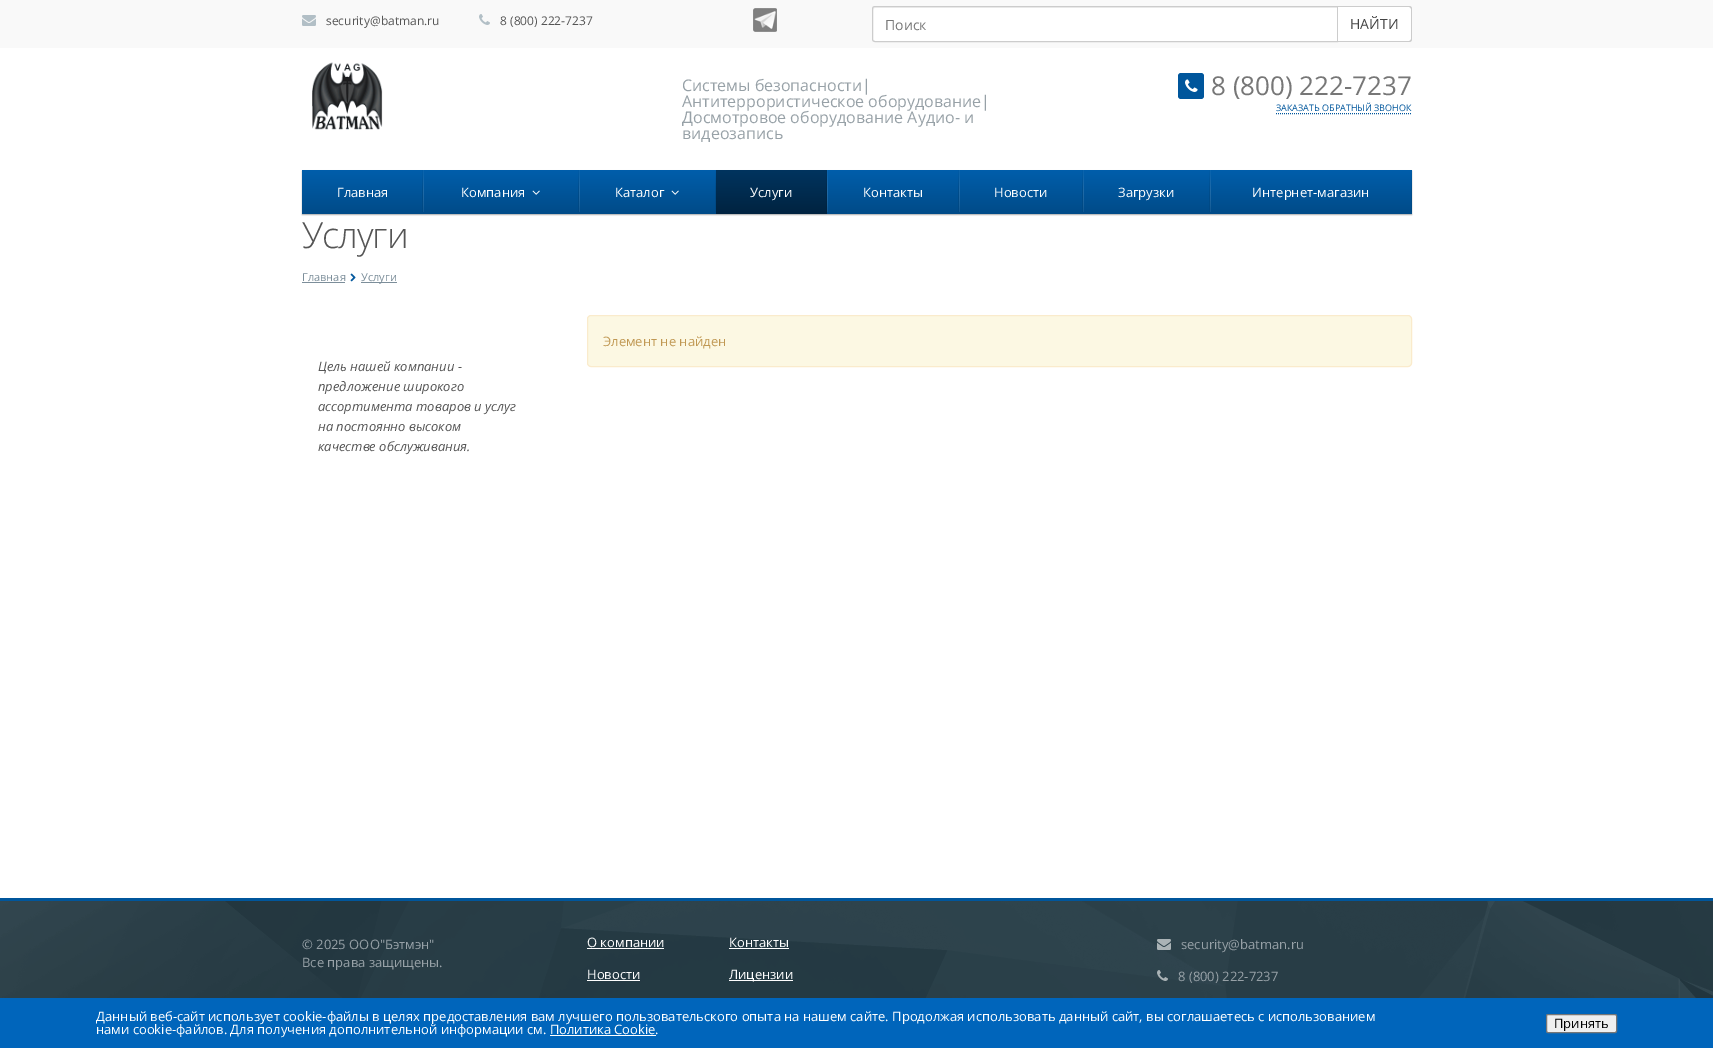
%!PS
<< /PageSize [1713 1048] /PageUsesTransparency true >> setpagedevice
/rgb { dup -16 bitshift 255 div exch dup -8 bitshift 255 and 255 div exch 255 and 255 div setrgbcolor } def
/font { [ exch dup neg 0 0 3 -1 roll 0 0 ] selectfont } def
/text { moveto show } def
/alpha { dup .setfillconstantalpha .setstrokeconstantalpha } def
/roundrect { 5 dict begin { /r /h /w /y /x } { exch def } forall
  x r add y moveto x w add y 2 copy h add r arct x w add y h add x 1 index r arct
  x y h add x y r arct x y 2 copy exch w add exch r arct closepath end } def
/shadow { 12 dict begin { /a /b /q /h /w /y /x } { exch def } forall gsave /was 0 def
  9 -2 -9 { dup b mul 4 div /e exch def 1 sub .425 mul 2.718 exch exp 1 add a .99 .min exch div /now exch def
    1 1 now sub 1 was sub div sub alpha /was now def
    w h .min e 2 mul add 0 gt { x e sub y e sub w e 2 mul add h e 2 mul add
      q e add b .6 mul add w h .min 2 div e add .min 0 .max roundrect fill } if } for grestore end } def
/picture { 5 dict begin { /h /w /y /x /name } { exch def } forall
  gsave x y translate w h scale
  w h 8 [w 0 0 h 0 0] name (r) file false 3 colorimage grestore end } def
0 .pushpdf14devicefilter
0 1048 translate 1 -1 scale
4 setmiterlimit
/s1 { /OpenSans-Regular 12 font 16#555555 rgb } def
/s2 { /OpenSans-Regular 14 font 16#777777 rgb } def
/s3 { /OpenSans-Regular 14 font 16#444444 rgb } def
/s4 { /OpenSans-Regular 16 font 16#97A1A7 rgb } def
/s5 { /OpenSans-Regular 26 font 16#777777 rgb } def
/s6 { /OpenSans-Regular 9 font 16#00569C rgb } def
/s7 { /OpenSans-Regular 13 font 16#FFFFFF rgb } def
/s8 { /OpenSans-Regular 11 font 16#7C8E9A rgb } def
/s9 { /OpenSans-Regular 13 font 16#C09853 rgb } def
/s10 { /OpenSans-Italic 13 font 16#555555 rgb } def
/s11 { /OpenSans-Regular 13 font 16#97A1A7 rgb } def
/s12 { /OpenSans-Regular 13 font 16#000000 rgb } def
16#FFFFFF rgb
0 0 1713 1048 rectfill
16#F9F9F9 rgb
0 0 1713 48 rectfill
(pic1.raw) 302 15 14 11 picture
s1
(security@batman.ru) 326 25 text
(pic2.raw) 479 14 11 11 picture
(8 \(800\) 222-7237) 500 25 text
16#FFFFFF rgb
753 8 24 24 rectfill
(pic3.raw) 753 8 24 24 picture
875 6 moveto 1338 6 lineto 1338 42 lineto 875 42 lineto 873.5 42 872 40.5 872 39 curveto 872 9 lineto 872 7.5 873.5 6 875 6 curveto closepath fill
16#F2F2F2 rgb
875 8 moveto 1337 8 lineto 1337 7 lineto 875 7 lineto 873 7 873 9 873 10 curveto 873 9 874 8 875 8 curveto closepath fill
16#CCCCCC rgb
875 6.5 moveto 1337.5 6.5 lineto 1337.5 41.5 lineto 875 41.5 lineto 873.5 41.5 872.5 40.5 872.5 39 curveto 872.5 9 lineto 872.5 7.5 873.5 6.5 875 6.5 curveto closepath stroke
s2
(Поиск) 885 30 text
16#FFFFFF rgb
1338 6 moveto 1409 6 lineto 1410.5 6 1412 7.5 1412 9 curveto 1412 39 lineto 1412 40.5 1410.5 42 1409 42 curveto 1338 42 lineto closepath fill
16#CCCCCC rgb
1338 6 moveto 1409 6 lineto 1411 6 1412 7 1412 9 curveto 1412 39 lineto 1412 41 1411 42 1409 42 curveto 1338 42 lineto closepath 1338 7 moveto 1409 7 lineto 1410 7 1411 8 1411 9 curveto 1411 39 lineto 1411 40 1410 41 1409 41 curveto 1338 41 lineto closepath eofill
s3
(НАЙТИ) 1350 29 text
(pic4.raw) 312 62 71 68 picture
s4
(Системы безопасности|) 682 91 text
(Антитеррористическое оборудование|) 682 107 text
(Досмотровое оборудование Аудио- и) 682 123 text
(видеозапись) 682 139 text
16#00569C rgb
1178 73 26 26 3 roundrect fill
(pic5.raw) 1185 79 13 13 picture
s5
(8 \(800\) 222-7237) 1211 95 text
16#00569C rgb
[1 1] 0 setdash
1276 113.5 moveto 1412 113.5 lineto stroke
s6
(ЗАКАЗАТЬ ОБРАТНЫЙ ЗВОНОК) 1276 111 text
16#000000 rgb
302 171 1110 44 0 0.5 0.3 shadow
gsave 302 170 moveto 1412 170 lineto 1412 214 lineto 302 214 lineto closepath clip newpath
<< /ShadingType 2 /ColorSpace /DeviceRGB /Coords [857 170 857 214] /Extend [true true] /Function << /FunctionType 2 /Domain [0 1] /C0 [0 0.369 0.671] /C1 [0 0.294 0.533] /N 1 >> >> shfill grestore
s7
(Главная) 337 197 text
(pic6.raw) 422 170 2 42 picture
(Компания) 461 197 text
(pic7.raw) 532 190 8 5 picture
(pic6.raw) 578 170 2 42 picture
(Каталог) 615 197 text
(pic7.raw) 671 190 8 5 picture
(pic8.raw) 715 170 1 42 picture
gsave 716 170 moveto 827 170 lineto 827 214 lineto 716 214 lineto closepath clip newpath
<< /ShadingType 2 /ColorSpace /DeviceRGB /Coords [772 170 772 214] /Extend [true true] /Function << /FunctionType 2 /Domain [0 1] /C0 [0 0.204 0.373] /C1 [0 0.137 0.251] /N 1 >> >> shfill grestore
(Услуги) 750 197 text
(pic9.raw) 826 170 2 42 picture
(Контакты) 863 197 text
(pic6.raw) 958 170 2 42 picture
(Новости) 994 197 text
(pic6.raw) 1082 170 2 42 picture
(Загрузки) 1118 197 text
(pic6.raw) 1209 170 2 42 picture
(Интернет-магазин) 1252 197 text
(pic8.raw) 1411 170 1 42 picture
/OpenSans-Light 36 font
16#555555 rgb
302 248 moveto -1 0 (Услуги) ashow
s8
(Главная) 302 281 text
302 282 43 1 rectfill
(pic10.raw) 350 273 6 9 picture
361 282 36 1 rectfill
(Услуги) 361 281 text
16#FCF8E3 rgb
587.5 315.5 824 51 3.5 roundrect gsave fill grestore
16#FAEBCC rgb
[] 0 setdash
stroke
s9
(Элемент не найден) 603 346 text
s10
(Цель нашей компании -) 318 371 text
(предложение широкого) 318 391 text
(ассортимента товаров и услуг) 318 411 text
(на постоянно высоком) 318 431 text
(качестве обслуживания.) 318 451 text
16#253C46 rgb
0 901 1713 97 rectfill
(pic11.raw) 0 901 1713 97 picture
16#00569C rgb
0 898 1713 3 rectfill
s11
(© 2025 ООО"Бэтмэн") 302 949 text
(Все права защищены.) 302 967 text
s7
(О компании) 587 947 text
587 948 77 1 rectfill
(Новости) 587 979 text
587 980 53 1 rectfill
(Контакты) 729 947 text
729 948 60 1 rectfill
729 980 64 1 rectfill
(Лицензии) 729 979 text
(pic12.raw) 1157 939 14 11 picture
s11
(security@batman.ru) 1181 949 text
(pic13.raw) 1157 970 11 11 picture
(8 \(800\) 222-7237) 1178 981 text
16#0065BB rgb
0 998 1713 50 rectfill
s7
(Данный веб-сайт использует cookie-файлы в целях предоставления вам лучшего пользовательского опыта на нашем сайте. Продолжая использовать данный сайт, вы соглашаетесь с использованием) 96 1021 text
(нами cookie-файлов. Для получения дополнительной информации см. Политика Cookie.) 96 1034 text
550 1035 106 1 rectfill
16#EFEFEF rgb
1546.5 1014.5 70 18 1.5 roundrect gsave fill grestore
16#767676 rgb
stroke
s12
(Принять) 1554 1028 text
.poppdf14devicefilter showpage
